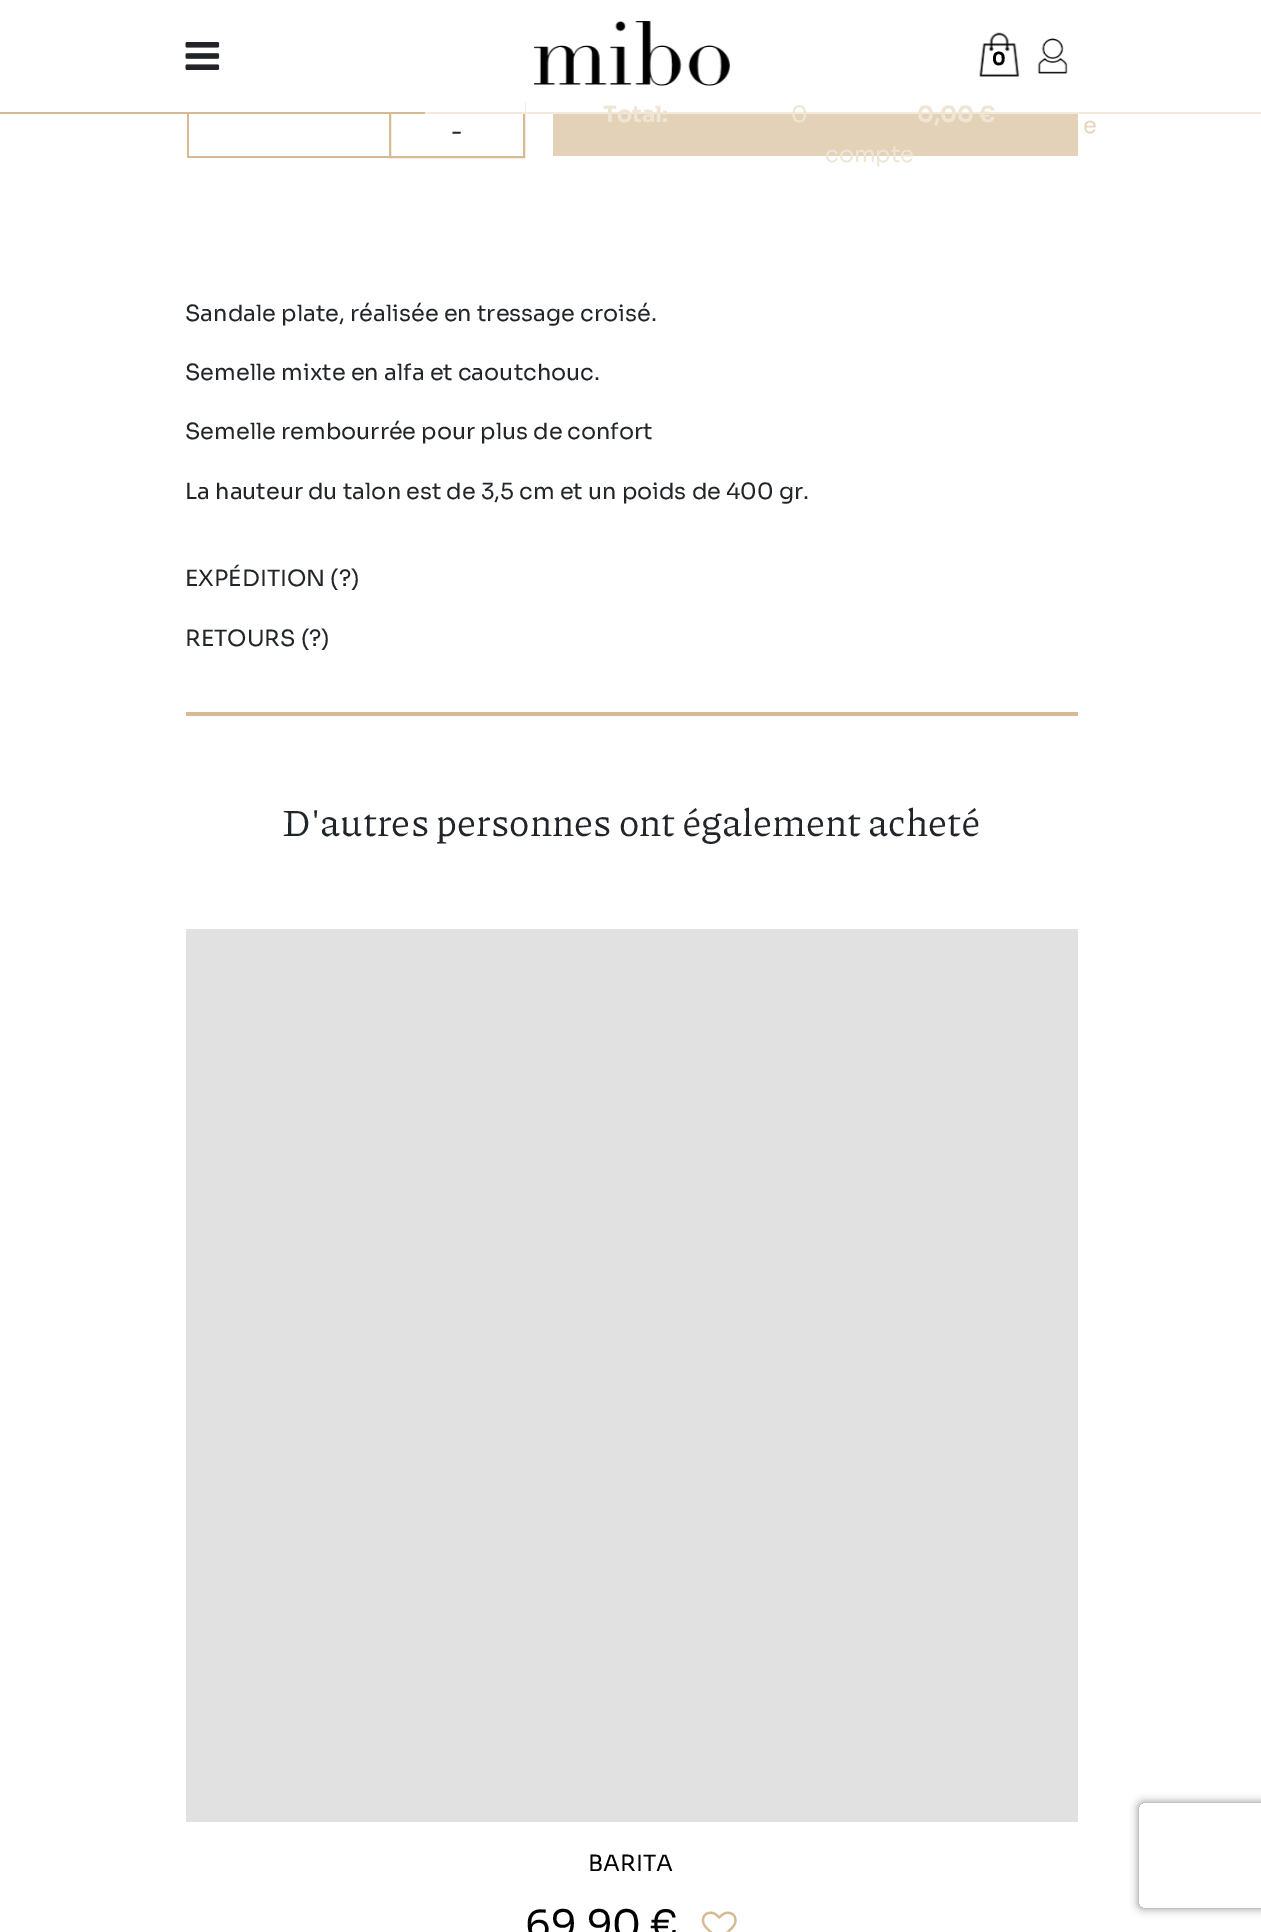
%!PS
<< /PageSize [1261 1932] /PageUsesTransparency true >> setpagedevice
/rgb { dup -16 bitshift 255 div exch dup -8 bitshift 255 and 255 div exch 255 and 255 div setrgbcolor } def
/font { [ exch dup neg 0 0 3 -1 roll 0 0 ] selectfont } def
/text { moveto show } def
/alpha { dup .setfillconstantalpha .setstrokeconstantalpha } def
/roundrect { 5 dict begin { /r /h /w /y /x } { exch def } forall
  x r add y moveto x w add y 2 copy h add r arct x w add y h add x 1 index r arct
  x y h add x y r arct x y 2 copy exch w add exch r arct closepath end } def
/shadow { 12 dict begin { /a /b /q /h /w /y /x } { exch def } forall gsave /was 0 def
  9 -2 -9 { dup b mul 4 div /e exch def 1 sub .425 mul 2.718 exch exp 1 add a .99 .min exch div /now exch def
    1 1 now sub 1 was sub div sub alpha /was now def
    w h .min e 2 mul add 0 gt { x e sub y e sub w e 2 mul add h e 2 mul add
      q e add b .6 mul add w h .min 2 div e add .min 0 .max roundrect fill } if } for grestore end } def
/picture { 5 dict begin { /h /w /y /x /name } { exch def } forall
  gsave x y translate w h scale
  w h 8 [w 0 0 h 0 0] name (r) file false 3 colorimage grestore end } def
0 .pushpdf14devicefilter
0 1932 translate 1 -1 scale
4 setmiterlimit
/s1 { /Sora-Bold 18 font 16#000000 rgb } def
/s2 { /Sora-Bold 22.4 font 16#EFE5D5 rgb } def
/s3 { /Sora-Regular 22.4 font 16#EFE5D5 rgb } def
/s4 { /Sora-Regular 22.4 font 16#E6D5BD rgb } def
/s5 { /Sora-Regular 22.4 font 16#212529 rgb } def
/s6 { /Piazzolla-Regular 38.1 font 16#212529 rgb } def
/s7 { /Sora-Regular 22.4 font 16#000000 rgb } def
/s8 { /Sora-Regular 39 font 16#000000 rgb } def
16#FFFFFF rgb
0 0 1261 1932 rectfill
16#D6BA91 rgb
2 setlinewidth
390 103 134 54 rectstroke
16#FFFFFF rgb
389 102 136 10 rectfill
16#F3EADC rgb
425 112 836 2 rectfill
(pic1.raw) 534 21 196 65 picture
16#D6BA91 rgb
0 112 425 2 rectfill
(pic2.raw) 185 42 35 28 picture
(pic3.raw) 979 32 41 45 picture
s1
(0) 992 65 text
16#E4D2B8 rgb
553 114 525 42 rectfill
s2
(Total:) 603 122 text
s3
(0) 791 122 text
s2
(0,00 €) 917 122 text
(pic4.raw) 1037 38 31 36 picture
s4
(e) 1083 133 text
s3
(compte) 825 162 text
16#D6BA91 rgb
187 156 202 2 rectfill
187 114 2 44 rectfill
s5
(-) 451 139 text
(Sandale plate, réalisée en tressage croisé.) 185 321 text
(Semelle mixte en alfa et caoutchouc.) 185 380 text
(Semelle rembourrée pour plus de confort) 185 439 text
(La hauteur du talon est de 3,5 cm et un poids de 400 gr.) 185 499 text
(EXPÉDITION \(?\)) 185 586 text
(RETOURS \(?\)) 185 646 text
16#D6BA91 rgb
186 712 892 4 rectfill
s6
(D'autres personnes ont également acheté) 282 836 text
16#E1E1E1 rgb
186 929 892 893 rectfill
s7
(BARITA) 588 1871 text
s8
(69,90 €) 525 1938 text
(pic5.raw) 701 1911 36 21 picture
gsave
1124 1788 moveto 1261 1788 lineto 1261 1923 lineto 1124 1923 lineto closepath 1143 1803 moveto 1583 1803 lineto 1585 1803 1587 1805 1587 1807 curveto 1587 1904 lineto 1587 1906 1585 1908 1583 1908 curveto 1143 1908 lineto 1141 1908 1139 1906 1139 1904 curveto 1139 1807 lineto 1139 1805 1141 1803 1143 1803 curveto closepath eoclip newpath
16#808080 rgb
1139 1803 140 105 4 4.5 1 shadow
grestore
.poppdf14devicefilter showpage
